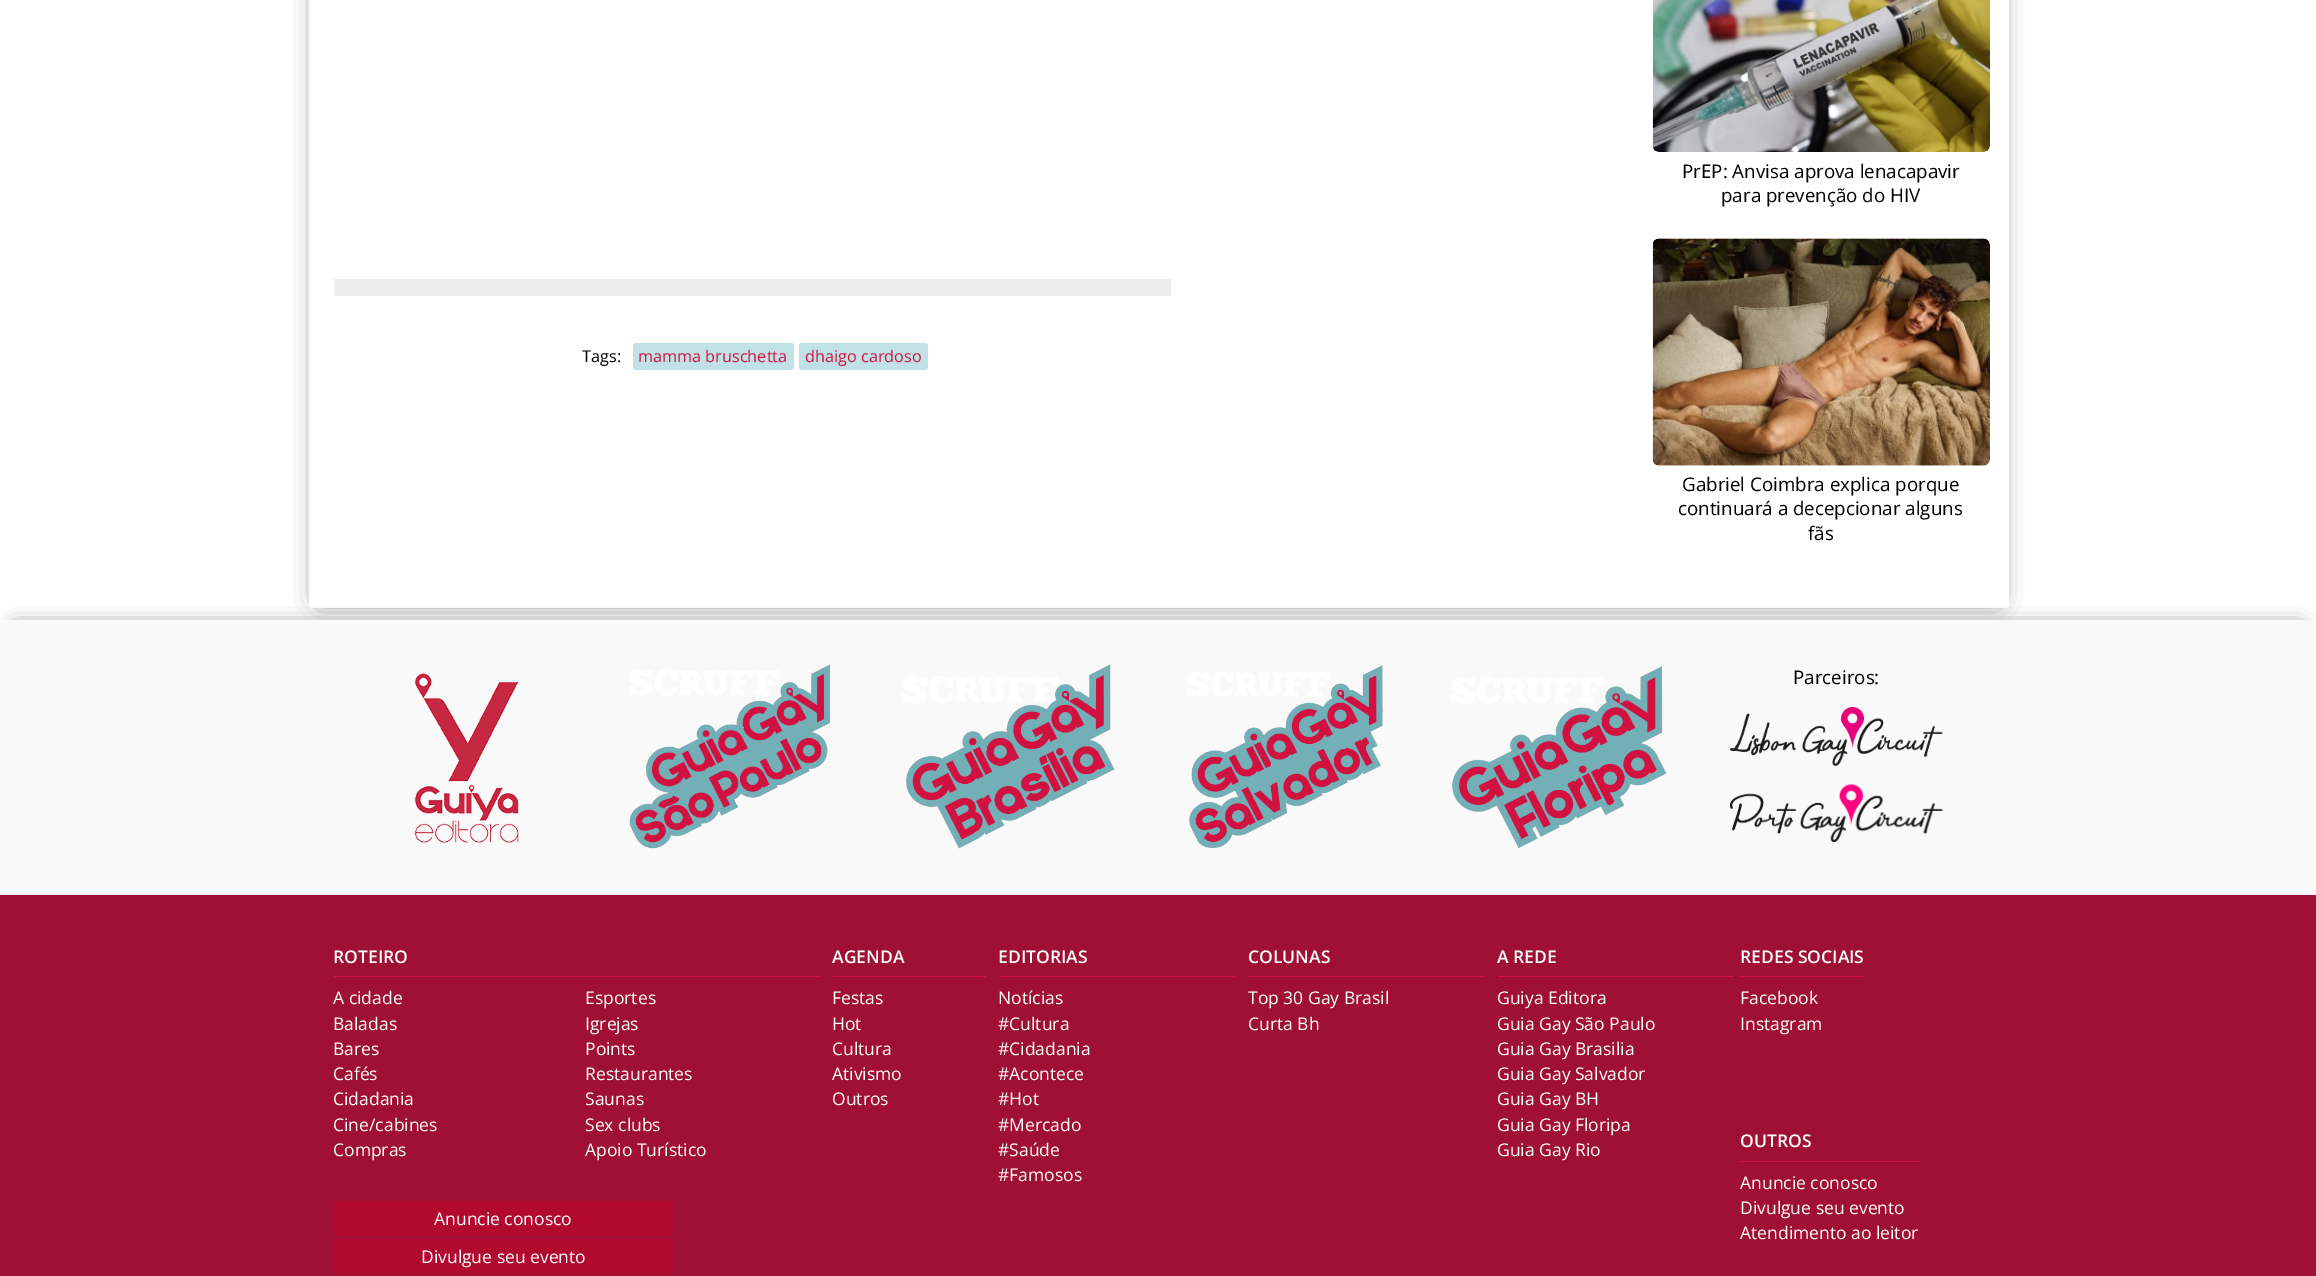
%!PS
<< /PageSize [2316 1276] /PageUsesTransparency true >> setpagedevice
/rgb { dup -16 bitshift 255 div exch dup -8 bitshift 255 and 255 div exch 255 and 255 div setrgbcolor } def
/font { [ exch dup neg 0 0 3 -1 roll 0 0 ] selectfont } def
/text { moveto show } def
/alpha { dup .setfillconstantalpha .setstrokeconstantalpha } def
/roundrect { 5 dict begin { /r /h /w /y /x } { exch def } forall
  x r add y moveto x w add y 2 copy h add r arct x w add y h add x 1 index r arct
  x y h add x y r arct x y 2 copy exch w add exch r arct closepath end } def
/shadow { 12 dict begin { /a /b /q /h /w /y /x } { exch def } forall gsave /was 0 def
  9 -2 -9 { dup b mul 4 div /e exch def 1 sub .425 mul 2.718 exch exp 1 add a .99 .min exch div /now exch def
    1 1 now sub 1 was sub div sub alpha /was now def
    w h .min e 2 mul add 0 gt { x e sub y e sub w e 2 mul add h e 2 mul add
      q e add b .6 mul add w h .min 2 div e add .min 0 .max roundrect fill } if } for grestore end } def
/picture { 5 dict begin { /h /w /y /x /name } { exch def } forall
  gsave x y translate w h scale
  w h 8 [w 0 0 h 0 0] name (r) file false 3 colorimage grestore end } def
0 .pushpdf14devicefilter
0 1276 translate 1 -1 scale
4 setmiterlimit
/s1 { /OpenSans-Regular 16.25 font 16#000000 rgb } def
/s2 { /OpenSans-Regular 16.25 font 16#D21241 rgb } def
/s3 { /OpenSans-Regular 18.75 font 16#000000 rgb } def
/s4 { /OpenSans-SemiBold 17.5 font 16#FFFFFF rgb } def
/s5 { /OpenSans-Regular 17.5 font 16#FFFFFF rgb } def
16#FFFFFF rgb
0 0 2316 1276 rectfill
16#000000 rgb
321 -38 1675 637 0 12.5 0.75 shadow
16#FFFFFF rgb
309 -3 1700 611 3 roundrect fill
16#EEEEEE rgb
334 279 837 17 rectfill
s1
(Tags:) 582 362 text
16#C0E1E5 rgb
633 343 161 27 3 roundrect fill
s2
(mamma bruschetta) 638 362 text
16#C0E1E5 rgb
799 343 129 27 3 roundrect fill
s2
(dhaigo cardoso) 805 362 text
(pic1.raw) 1652 0 338 152 picture
s3
(PrEP: Anvisa aprova lenacapavir) 1682 178 text
(para prevenção do HIV) 1721 202 text
(pic2.raw) 1652 238 338 228 picture
(Gabriel Coimbra explica porque) 1682 491 text
(continuará a decepcionar alguns) 1678 515 text
(fãs) 1808 540 text
16#A01034 rgb
0 895 2316 381 rectfill
16#000000 rgb
16 628 2284 242 0 9.5 0.75 shadow
16#F9F9F9 rgb
0 620 2316 275 rectfill
(pic3.raw) 414 673 105 170 picture
(pic4.raw) 629 664 202 185 picture
(pic5.raw) 902 664 213 185 picture
(pic6.raw) 1187 665 196 183 picture
(pic7.raw) 1450 666 217 183 picture
s3
(Parceiros:) 1793 684 text
(pic8.raw) 1730 707 213 59 picture
(pic9.raw) 1730 784 213 58 picture
16#D21241 rgb
334 976 486 1 rectfill
s4
(ROTEIRO) 333 963 text
s5
(A cidade) 333 1004 text
(Esportes) 585 1004 text
(Baladas) 333 1030 text
(Igrejas) 585 1030 text
(Bares) 333 1055 text
(Points) 585 1055 text
(Cafés) 333 1080 text
(Restaurantes) 585 1080 text
(Cidadania) 333 1105 text
(Saunas) 585 1105 text
(Cine/cabines) 333 1131 text
(Sex clubs) 585 1131 text
(Compras) 333 1156 text
(Apoio Turístico) 585 1156 text
16#B20A2F rgb
334 1201 340 35 6 roundrect fill
s5
(Anuncie conosco) 434 1225 text
16#B20A2F rgb
334 1239 340 35 6 roundrect fill
s5
(Divulgue seu evento) 421 1263 text
16#D21241 rgb
833 976 153 1 rectfill
s4
(AGENDA) 832 963 text
s5
(Festas) 832 1004 text
(Hot) 832 1030 text
(Cultura) 832 1055 text
(Ativismo) 832 1080 text
(Outros) 832 1105 text
16#D21241 rgb
999 976 236 1 rectfill
s4
(EDITORIAS) 998 963 text
s5
(Notícias) 998 1004 text
(#Cultura) 998 1030 text
(#Cidadania) 998 1055 text
(#Acontece) 998 1080 text
(#Hot) 998 1105 text
(#Mercado) 998 1131 text
(#Saúde) 998 1156 text
(#Famosos) 998 1181 text
16#D21241 rgb
1248 976 237 1 rectfill
s4
(COLUNAS) 1248 963 text
s5
(Top 30 Gay Brasil) 1248 1004 text
(Curta Bh) 1248 1030 text
16#D21241 rgb
1498 976 236 1 rectfill
s4
(A REDE) 1497 963 text
s5
(Guiya Editora) 1497 1004 text
(Guia Gay São Paulo) 1497 1030 text
(Guia Gay Brasilia) 1497 1055 text
(Guia Gay Salvador) 1497 1080 text
(Guia Gay BH) 1497 1105 text
(Guia Gay Floripa) 1497 1131 text
(Guia Gay Rio) 1497 1156 text
16#D21241 rgb
1740 976 124 1 rectfill
s4
(REDES SOCIAIS) 1740 963 text
s5
(Facebook) 1740 1004 text
(Instagram) 1740 1030 text
16#D21241 rgb
1740 1161 179 1 rectfill
s4
(OUTROS) 1740 1147 text
s5
(Anuncie conosco) 1740 1189 text
(Divulgue seu evento) 1740 1214 text
(Atendimento ao leitor) 1740 1239 text
.poppdf14devicefilter showpage
